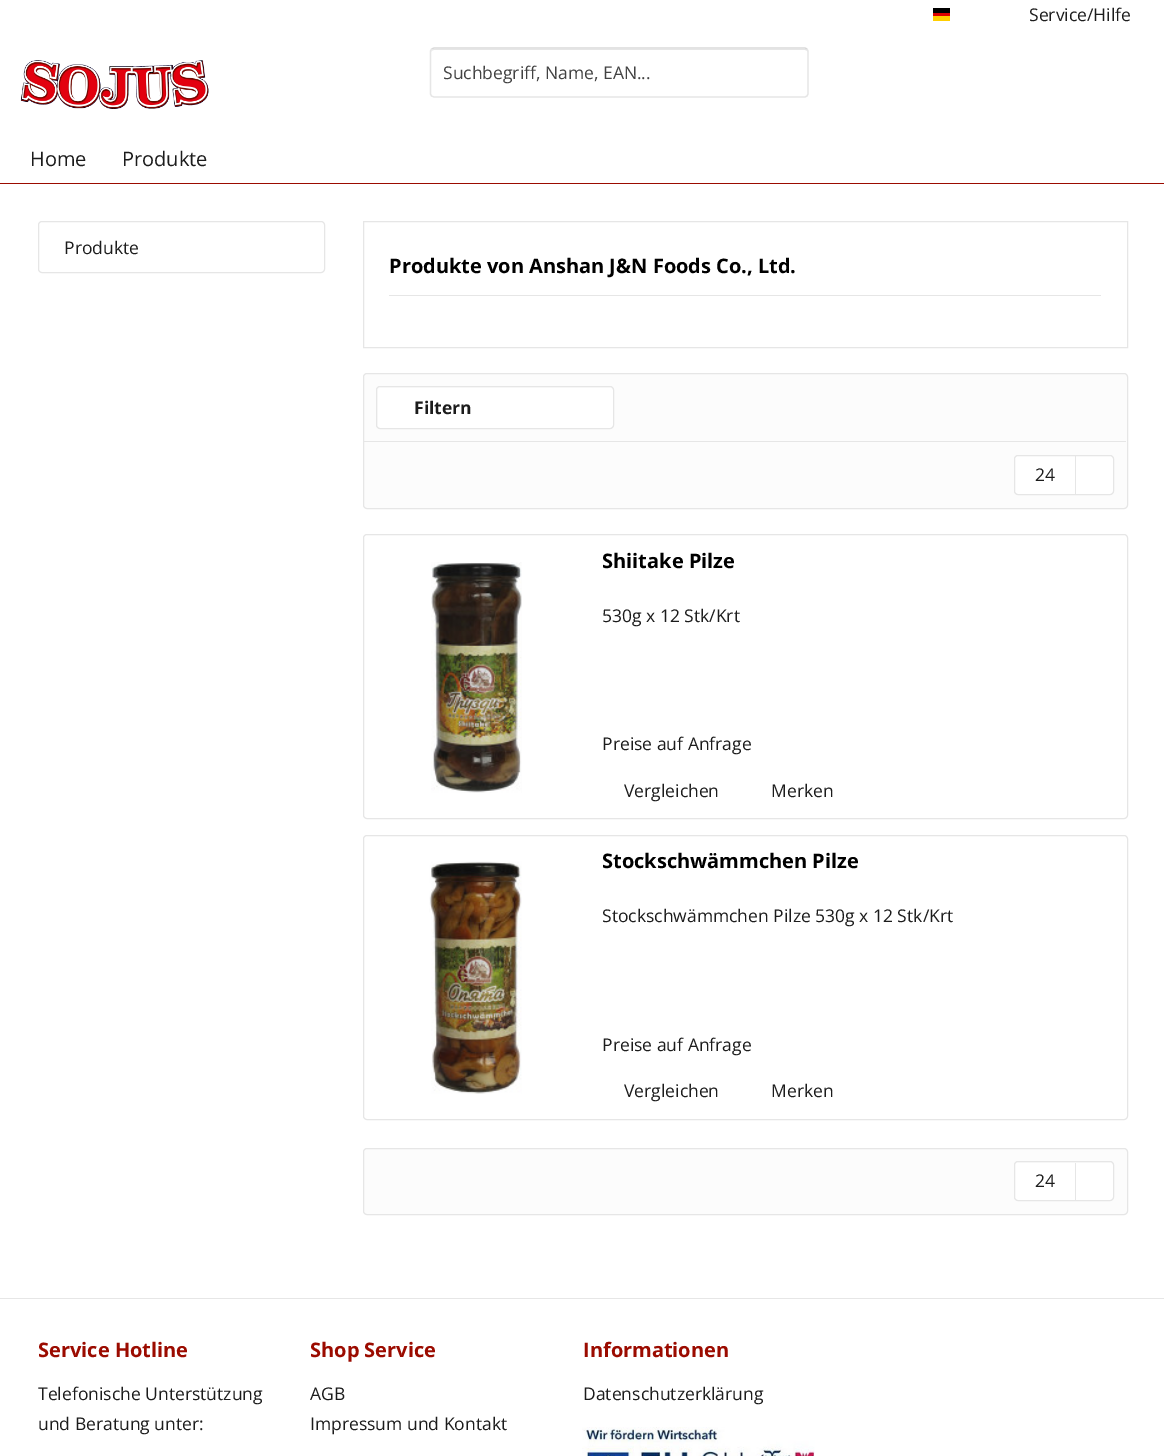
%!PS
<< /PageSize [1164 1456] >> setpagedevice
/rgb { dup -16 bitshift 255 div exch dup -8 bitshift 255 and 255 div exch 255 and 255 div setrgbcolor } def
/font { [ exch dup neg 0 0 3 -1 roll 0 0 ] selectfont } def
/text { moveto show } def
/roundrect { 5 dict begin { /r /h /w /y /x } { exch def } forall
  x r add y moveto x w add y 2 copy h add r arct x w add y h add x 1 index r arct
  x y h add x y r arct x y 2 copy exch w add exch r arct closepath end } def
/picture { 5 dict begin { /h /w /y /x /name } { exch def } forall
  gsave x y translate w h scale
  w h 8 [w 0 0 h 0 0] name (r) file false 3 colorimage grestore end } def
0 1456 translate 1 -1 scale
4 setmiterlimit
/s1 { /OpenSans-Regular 17.5 font 16#1C1C1C rgb } def
/s2 { /OpenSans-Regular 17.5 font 16#424242 rgb } def
/s3 { /OpenSans-Regular 20 font 16#1C1C1C rgb } def
/s4 { /OpenSans-Bold 20 font 16#000000 rgb } def
/s5 { /OpenSans-Bold 17.5 font 16#1C1C1C rgb } def
/s6 { /OpenSans-Bold 20 font 16#9B0B00 rgb } def
16#FFFFFF rgb
0 0 1164 1456 rectfill
16#000000 rgb
933 8 17 5 rectfill
16#DD0000 rgb
933 13 17 3 rectfill
16#FFCE00 rgb
933 16 17 5 rectfill
s1
(Service/Hilfe) 1029 21 text
(pic1.raw) 20 60 189 49 picture
16#E6E6E6 rgb
434 50 moveto 805 50 lineto 806 50 808 51 808 52 curveto 808 50 807 49 806 49 curveto 434 49 lineto 432 50 lineto 431 52 lineto 431 51 432 50 434 50 curveto closepath fill
16#D9D9D9 rgb
1.2 setlinewidth
431.5 49 moveto 434 48 lineto 805 48 lineto 807 49 lineto stroke
16#E6E6E6 rgb
807 49 moveto 808 51 lineto 808 94 lineto 807 96 lineto 805 97 lineto 434 97 lineto 431.5 96 lineto 430.5 94 lineto 430.5 51 lineto 431.5 49 lineto stroke
s2
(Suchbegriff, Name, EAN...) 443 79 text
16#9B0B00 rgb
0 183 1164 1 rectfill
s3
(Home) 30 166 text
(Produkte) 122 166 text
16#E6E6E6 rgb
1 setlinewidth
38.5 221.5 286 51 3.5 roundrect stroke
s1
(Produkte) 64 254 text
16#E6E6E6 rgb
363.5 221.5 764 126 rectstroke
389 295 712 1 rectfill
s4
(Produkte von Anshan J&N Foods Co., Ltd.) 389 273 text
16#FCFCFC rgb
363.5 373.5 764 135 3.5 roundrect gsave fill grestore
16#E6E6E6 rgb
stroke
16#FFFFFF rgb
378 388 235 40 2.5 roundrect fill
16#E6E6E6 rgb
376.5 386.5 237 42 3.5 roundrect stroke
s5
(Filtern) 414 414 text
16#E6E6E6 rgb
364 441 762 1 rectfill
16#FFFFFF rgb
1015 456 98 38 2.5 roundrect fill
16#E6E6E6 rgb
1014.5 455.5 99 39 3.5 roundrect stroke
s1
(24) 1035 481 text
16#E6E6E6 rgb
1075 456 1 39 rectfill
363.5 534.5 764 284 3.5 roundrect stroke
(pic2.raw) 431 562 91 231 picture
s4
(Shiitake Pilze) 602 568 text
s1
(530g x 12 Stk/Krt) 602 622 text
(Preise auf Anfrage) 602 750 text
(Vergleichen) 624 797 text
(Merken) 771 797 text
16#E6E6E6 rgb
363.5 835.5 764 284 3.5 roundrect stroke
(pic3.raw) 429 861 93 233 picture
s4
(Stockschwämmchen Pilze) 602 868 text
s1
(Stockschwämmchen Pilze 530g x 12 Stk/Krt) 602 922 text
(Preise auf Anfrage) 602 1051 text
(Vergleichen) 624 1097 text
(Merken) 771 1097 text
16#FCFCFC rgb
363.5 1148.5 764 66 3.5 roundrect gsave fill grestore
16#E6E6E6 rgb
stroke
16#FFFFFF rgb
1015 1163 98 37 2.5 roundrect fill
16#E6E6E6 rgb
1014.5 1161.5 99 39 3.5 roundrect stroke
s1
(24) 1035 1187 text
16#E6E6E6 rgb
1075 1163 1 38 rectfill
0 1298 1164 1 rectfill
s6
(Service Hotline) 38 1357 text
s1
(Telefonische Unterstützung) 38 1400 text
(und Beratung unter:) 38 1430 text
s6
(Shop Service) 310 1357 text
s1
(AGB) 310 1400 text
(Impressum und Kontakt) 310 1430 text
s6
(Informationen) 583 1357 text
s1
(Datenschutzerklärung) 583 1400 text
(pic4.raw) 582 1427 233 29 picture
showpage
